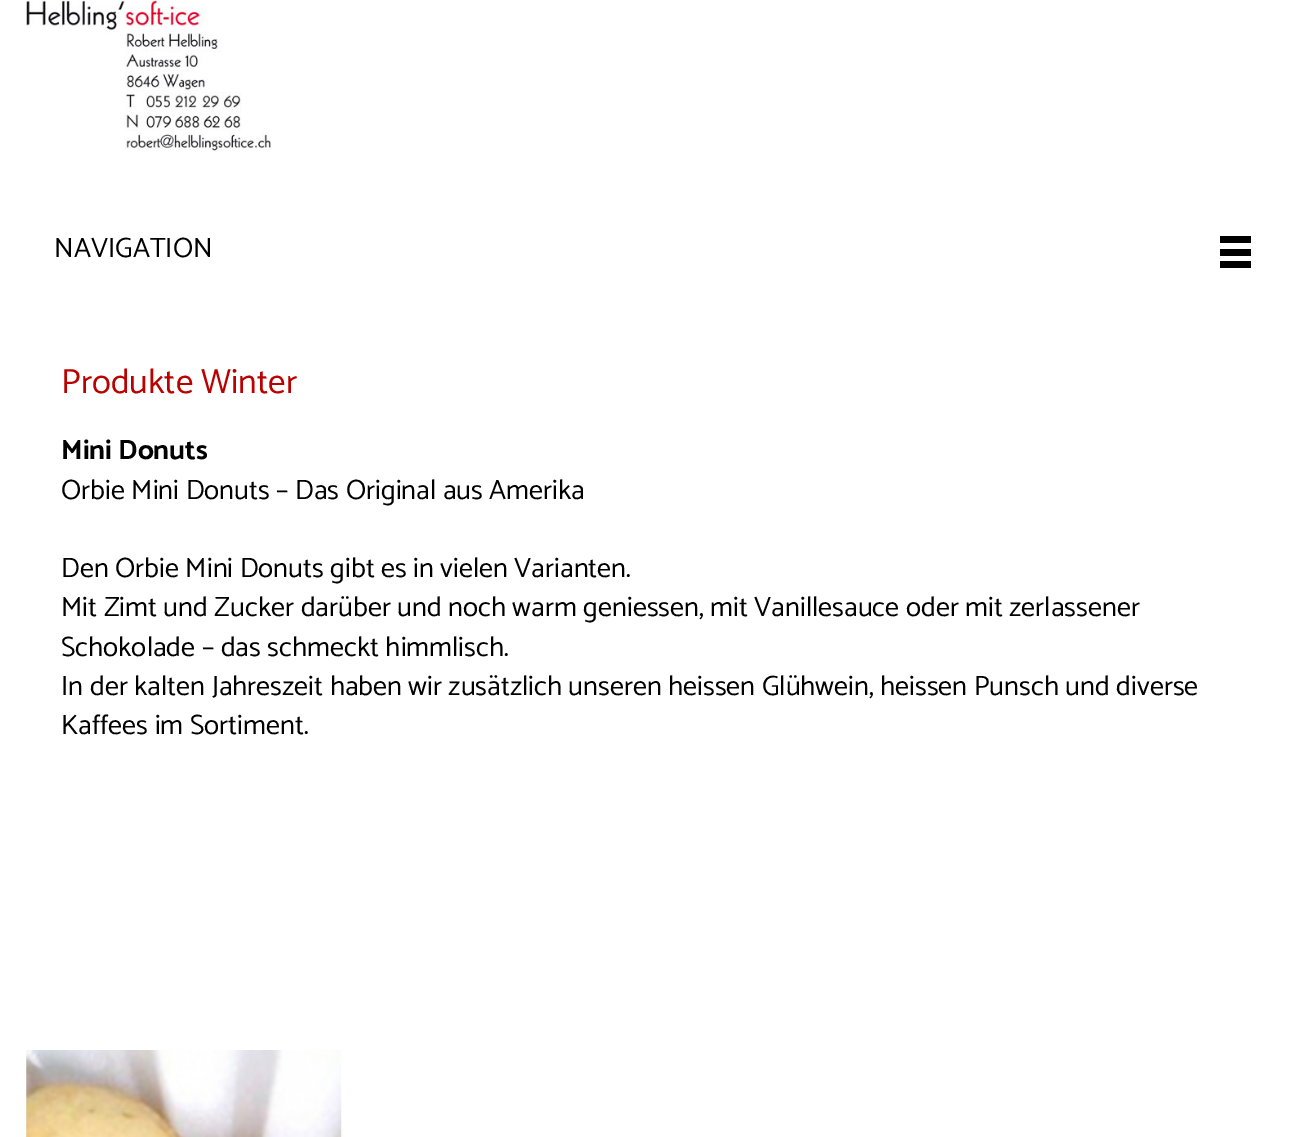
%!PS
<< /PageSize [1301 1137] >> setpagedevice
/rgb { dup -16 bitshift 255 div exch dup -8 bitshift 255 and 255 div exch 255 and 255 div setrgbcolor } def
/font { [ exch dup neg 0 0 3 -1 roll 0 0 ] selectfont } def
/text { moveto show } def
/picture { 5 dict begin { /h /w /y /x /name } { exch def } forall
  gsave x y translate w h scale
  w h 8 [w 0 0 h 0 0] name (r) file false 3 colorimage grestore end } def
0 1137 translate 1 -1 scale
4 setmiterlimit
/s1 { /Catamaran-Regular 28 font 16#000000 rgb } def
/s2 { /Catamaran-Regular 35 font 16#BB0000 rgb } def
/s3 { /Catamaran-Bold 28 font 16#000000 rgb } def
16#FFFFFF rgb
0 0 1301 1137 rectfill
(pic1.raw) 26 0 245 151 picture
s1
(NAVIGATION) 54 257 text
1220 236 31 7 rectfill
1220 249 31 7 rectfill
1220 261 31 7 rectfill
s2
(Produkte Winter) 61 393 text
s3
(Mini Donuts) 61 459 text
s1
(Orbie Mini Donuts – Das Original aus Amerika) 61 499 text
(Den Orbie Mini Donuts gibt es in vielen Varianten.) 61 577 text
(Mit Zimt und Zucker darüber und noch warm geniessen, mit Vanillesauce oder mit zerlassener) 61 616 text
(Schokolade – das schmeckt himmlisch.) 61 656 text
(In der kalten Jahreszeit haben wir zusätzlich unseren heissen Glühwein, heissen Punsch und diverse) 61 695 text
(Kaffees im Sortiment.) 61 734 text
(pic2.raw) 26 1050 316 87 picture
showpage
